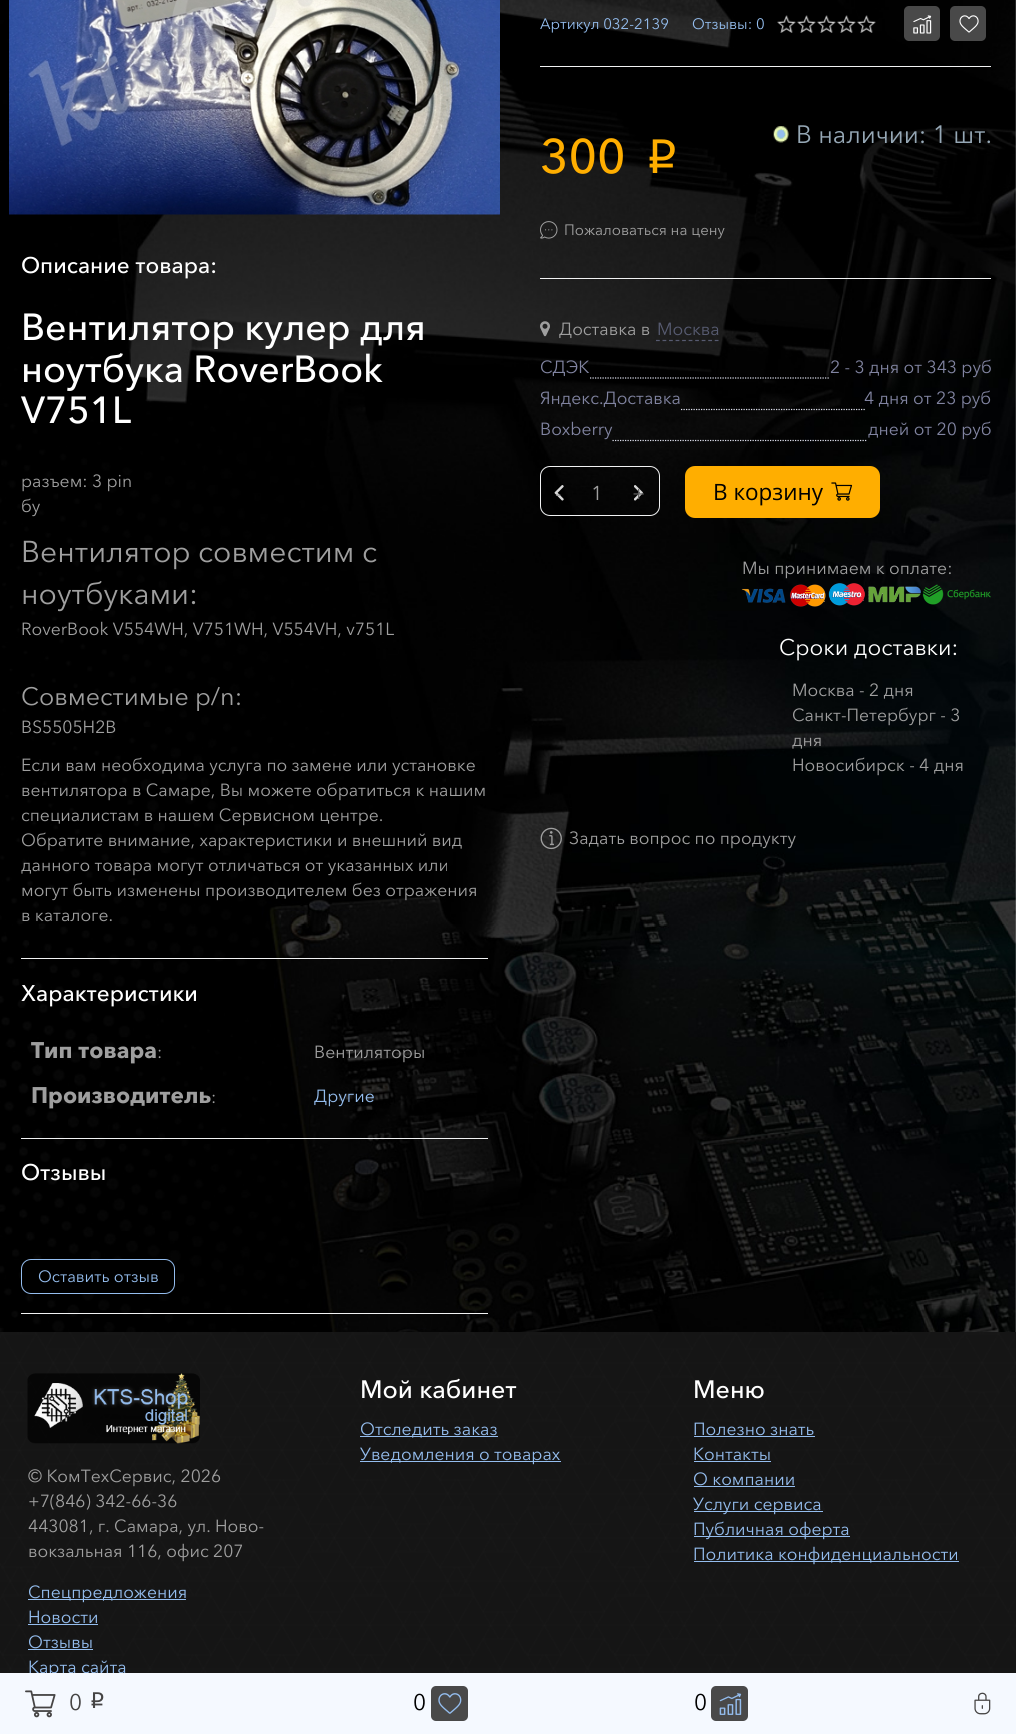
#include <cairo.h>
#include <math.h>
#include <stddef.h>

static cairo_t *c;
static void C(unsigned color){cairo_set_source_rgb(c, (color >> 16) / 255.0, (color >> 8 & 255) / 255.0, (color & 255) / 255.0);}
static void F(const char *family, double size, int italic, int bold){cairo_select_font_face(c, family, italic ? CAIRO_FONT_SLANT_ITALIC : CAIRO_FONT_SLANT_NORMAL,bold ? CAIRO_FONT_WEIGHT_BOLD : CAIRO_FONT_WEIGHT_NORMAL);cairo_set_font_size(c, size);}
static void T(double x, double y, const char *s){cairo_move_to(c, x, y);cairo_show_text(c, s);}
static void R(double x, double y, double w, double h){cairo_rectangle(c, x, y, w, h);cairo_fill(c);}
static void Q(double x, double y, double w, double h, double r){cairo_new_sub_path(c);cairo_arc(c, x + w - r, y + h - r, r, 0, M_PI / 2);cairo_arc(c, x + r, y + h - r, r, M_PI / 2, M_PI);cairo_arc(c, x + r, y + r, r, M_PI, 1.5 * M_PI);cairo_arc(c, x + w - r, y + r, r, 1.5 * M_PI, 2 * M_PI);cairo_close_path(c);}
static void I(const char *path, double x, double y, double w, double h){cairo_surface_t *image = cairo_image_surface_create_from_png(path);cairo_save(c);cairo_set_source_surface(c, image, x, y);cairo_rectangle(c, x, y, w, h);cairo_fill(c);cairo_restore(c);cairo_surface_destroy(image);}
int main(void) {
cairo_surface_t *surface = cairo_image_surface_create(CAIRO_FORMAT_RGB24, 1016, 1734);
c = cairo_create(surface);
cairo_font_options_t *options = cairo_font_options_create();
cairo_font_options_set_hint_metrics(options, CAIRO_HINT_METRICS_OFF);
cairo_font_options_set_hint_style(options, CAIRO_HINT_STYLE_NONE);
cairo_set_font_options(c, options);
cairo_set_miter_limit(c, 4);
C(0xffffff);
cairo_paint(c);
I("1.png",0,0,1016,1332);
C(0xf1f2f3);
R(21,958,467,1);
F("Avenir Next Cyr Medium",22.5,0,0);
C(0xffffff);
T(21,273,"Описание товара:");
F("Avenir Next Cyr Medium",37.5,0,0);
T(21,340,"Вентилятор кулер для");
T(21,382,"ноутбука RoverBook");
T(21,423,"V751L");
F("Avenir Next Cyr",17.5,0,0);
C(0x9f9f9f);
T(21,487,"разъем: 3 pin");
T(21,512,"бу");
F("Avenir Next Cyr",30,0,0);
T(21,562,"Вентилятор совместим с");
T(21,604,"ноутбуками:");
F("Avenir Next Cyr",17.5,0,0);
T(21,635,"RoverBook V554WH, V751WH, V554VH, v751L");
F("Avenir Next Cyr",25,0,0);
T(21,705,"Совместимые p/n:");
F("Avenir Next Cyr",17.5,0,0);
T(21,733,"BS5505H2B");
T(21,771,"Если вам необходима услуга по замене или установке");
T(21,796,"вентилятора в Самаре, Вы можете обратиться к нашим");
T(21,821,"специалистам в нашем Сервисном центре.");
T(21,846,"Обратите внимание, характеристики и внешний вид");
T(21,871,"данного товара могут отличаться от указанных или");
T(21,896,"могут быть изменены производителем без отражения");
T(21,921,"в каталоге.");
C(0xf1f2f3);
R(21,1138,467,1);
F("Avenir Next Cyr Medium",22.5,0,0);
C(0xffffff);
T(21,1001,"Характеристики");
F("Avenir Next Cyr",22.5,0,1);
C(0x9f9f9f);
T(31,1058,"Тип товара");
F("Avenir Next Cyr",17.5,0,0);
T(157,1058,":");
T(314,1058,"Вентиляторы");
F("Avenir Next Cyr",22.5,0,1);
T(31,1103,"Производитель");
F("Avenir Next Cyr",17.5,0,0);
T(211,1103,":");
C(0x94bdee);
T(314,1102,"Другие");
C(0xf1f2f3);
R(21,1313,467,1);
F("Avenir Next Cyr Medium",22.5,0,0);
C(0xffffff);
T(21,1180,"Отзывы");
C(0x000000);
Q(21.5,1259.5,153,34,9.5);
cairo_fill_preserve(c);
C(0x94bdee);
cairo_set_line_width(c,1);
cairo_stroke(c);
F("Avenir Next Cyr",16.25,0,0);
T(38,1282,"Оставить отзыв");
I("2.png",9,0,491,215);
C(0xf1f2f3);
R(540,66,451,1);
F("Avenir Next Cyr",15,0,0);
C(0x94bdee);
T(540,29,"Артикул 032-2139");
T(692,29,"Отзывы: 0");
I("3.png",777,15,99,18);
C(0x494949);
Q(904,6,36,35,5);
cairo_fill(c);
I("4.png",913,15,19,19);
Q(950,6,36,35,5);
cairo_fill(c);
I("5.png",959,15,20,18);
C(0xf1f2f3);
R(540,278,451,1);
I("6.png",773,126,16,17);
F("Avenir Next Cyr",25,0,0);
C(0x96a8b6);
T(796,143,"В наличии: 1 шт.");
F("Avenir Next Cyr Medium",48,0,0);
C(0xffae00);
T(540,173,"300");
F("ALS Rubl",48,0,0);
T(640,173,"p");
I("7.png",540,221,18,18);
F("Avenir Next Cyr",15,0,0);
C(0x9f9f9f);
T(564,235,"Пожаловаться на цену");
I("8.png",540,321,10,16);
F("Avenir Next Cyr",17.5,0,0);
T(559,335,"Доставка в");
C(0x575b71);
T(657,335,"Москва");
cairo_new_path(c);
cairo_move_to(c,656,340.5);
cairo_line_to(c,719,340.5);
cairo_set_line_width(c,1.2);
cairo_set_dash(c,(double[]){3.75,2.78},2,0);
cairo_stroke(c);
C(0x8184a1);
T(540,373,"СДЭК");
T(830,373,"2 - 3 дня от 343 руб");
cairo_new_path(c);
cairo_move_to(c,590,378);
cairo_line_to(c,830,378);
C(0xdee0ee);
cairo_set_dash(c,(double[]){1.25,1.25},2,0);
cairo_stroke(c);
C(0x8184a1);
T(540,404,"Яндекс.Доставка");
T(864,404,"4 дня от 23 руб");
cairo_new_path(c);
cairo_move_to(c,681,409.5);
cairo_line_to(c,865,409.5);
C(0xdee0ee);
cairo_stroke(c);
C(0x8184a1);
T(540,435,"Boxberry");
T(868,435,"дней от 20 руб");
cairo_new_path(c);
cairo_move_to(c,612.5,440.5);
cairo_line_to(c,867.5,440.5);
C(0xdee0ee);
cairo_stroke(c);
Q(540.5,466.5,119,49,9.5);
C(0xf1f2f3);
cairo_set_line_width(c,1);
cairo_set_dash(c,NULL,0,0);
cairo_stroke(c);
I("9.png",554,485,10,16);
F("Avenir Next Cyr",20,0,0);
C(0x919191);
T(555,500,"-");
C(0x9f9f9f);
T(591,500,"1");
I("10.png",634,485,9,16);
C(0x616161);
T(632,500,"+");
C(0xffae00);
Q(685,466,195,52,10);
cairo_fill(c);
F("Open Sans",22.5,0,0);
C(0x000000);
T(713,500,"В корзину");
I("11.png",831,482,22,19);
F("Avenir Next Cyr",17.5,0,0);
C(0x9f9f9f);
T(742,574,"Мы принимаем к оплате:");
I("12.png",741,583,250,24);
F("Avenir Next Cyr",22.5,0,0);
C(0xffffff);
T(779,655,"Сроки доставки:");
F("Avenir Next Cyr",17.5,0,0);
C(0x9f9f9f);
T(792,696,"Москва - 2 дня");
T(792,721,"Санкт-Петербург - 3");
T(792,746,"дня");
T(792,771,"Новосибирск - 4 дня");
I("13.png",540,827,22,23);
T(569,844,"Задать вопрос по продукту");
I("14.png",0,1332,1016,341);
I("15.png",27,1373,173,71);
T(28,1482,"© КомТехСервис, 2026");
T(28,1507,"+7(846) 342-66-36");
T(28,1532,"443081, г. Самара, ул. Ново-");
T(28,1557,"вокзальная 116, офис 207");
F("Avenir Next Cyr Medium",25,0,0);
C(0xffffff);
T(360,1398,"Мой кабинет");
C(0x94bdee);
R(360,1436,138,1);
F("Avenir Next Cyr",17.5,0,0);
T(360,1435,"Отследить заказ");
R(360,1461,201,1);
T(360,1460,"Уведомления о товарах");
F("Avenir Next Cyr Medium",25,0,0);
C(0xffffff);
T(693,1398,"Меню");
F("Avenir Next Cyr",17.5,0,0);
C(0x94bdee);
T(693,1435,"Полезно знать");
R(694,1436,121,1);
T(693,1460,"Контакты");
R(694,1461,77,1);
T(693,1485,"О компании");
R(694,1486,101,1);
R(694,1511,129,1);
T(693,1510,"Услуги сервиса");
R(694,1536,156,1);
T(693,1535,"Публичная оферта");
R(694,1561,265,1);
T(693,1560,"Политика конфиденциальности");
R(28,1599,158,1);
T(28,1598,"Спецпредложения");
T(28,1623,"Новости");
R(28,1624,70,1);
T(28,1648,"Отзывы");
R(28,1649,65,1);
T(28,1673,"Карта сайта");
C(0xf5f9ff);
R(0,1673,1016,61);
I("16.png",25,1690,31,28);
F("Avenir Next Cyr",22.5,0,0);
C(0x454444);
T(69,1710,"0");
F("ALS Rubl",22.5,0,0);
T(87,1708,"p");
F("Avenir Next Cyr",22.5,0,0);
C(0x000000);
T(413,1710,"0");
C(0x494949);
Q(431,1686,37,35,5);
cairo_fill(c);
I("17.png",438,1693,24,21);
C(0x000000);
T(694,1710,"0");
C(0x494949);
Q(711,1686,37,35,5);
cairo_fill(c);
I("18.png",719,1693,23,22);
I("19.png",974,1692,17,23);
cairo_surface_write_to_png(surface, "o.png");
cairo_font_options_destroy(options);
cairo_destroy(c);
cairo_surface_destroy(surface);
return 0;
}
